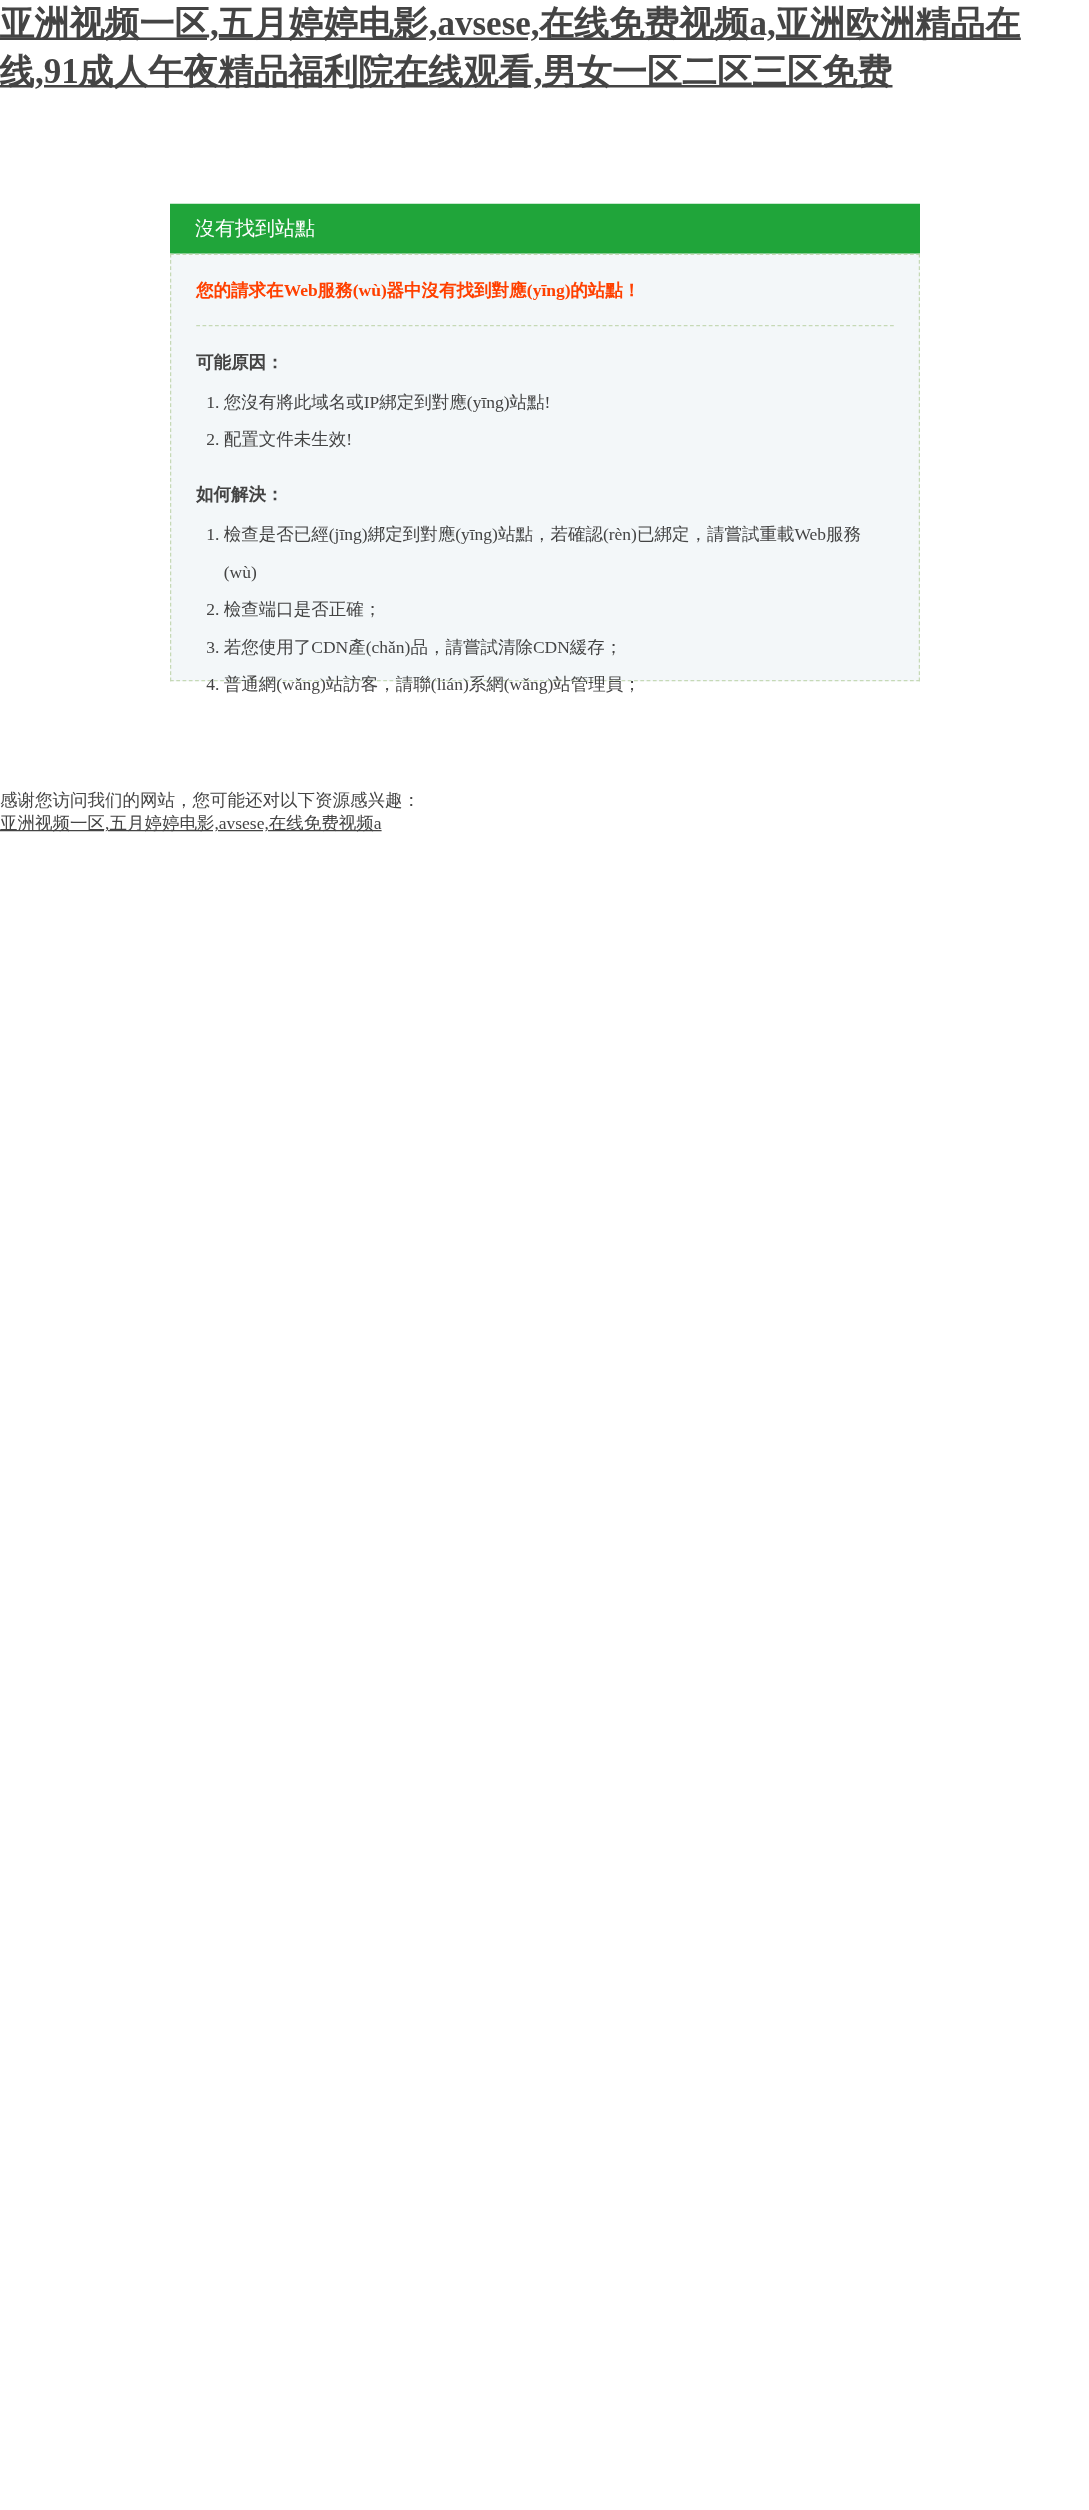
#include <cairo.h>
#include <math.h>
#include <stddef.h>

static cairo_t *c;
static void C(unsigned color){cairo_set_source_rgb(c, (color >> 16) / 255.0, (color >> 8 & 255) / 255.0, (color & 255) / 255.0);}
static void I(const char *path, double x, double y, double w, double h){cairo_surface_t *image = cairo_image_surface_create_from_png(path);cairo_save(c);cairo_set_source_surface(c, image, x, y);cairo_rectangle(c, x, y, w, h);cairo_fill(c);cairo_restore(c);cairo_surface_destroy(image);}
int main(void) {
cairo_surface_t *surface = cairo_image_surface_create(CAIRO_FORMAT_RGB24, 1089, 2510);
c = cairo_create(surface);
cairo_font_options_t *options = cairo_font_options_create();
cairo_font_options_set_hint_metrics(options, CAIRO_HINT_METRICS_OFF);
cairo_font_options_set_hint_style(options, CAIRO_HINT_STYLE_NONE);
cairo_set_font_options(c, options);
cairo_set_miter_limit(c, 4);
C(0xffffff);
cairo_paint(c);
I("1.png",0,5,1021,827);
cairo_surface_write_to_png(surface, "o.png");
cairo_font_options_destroy(options);
cairo_destroy(c);
cairo_surface_destroy(surface);
return 0;
}
